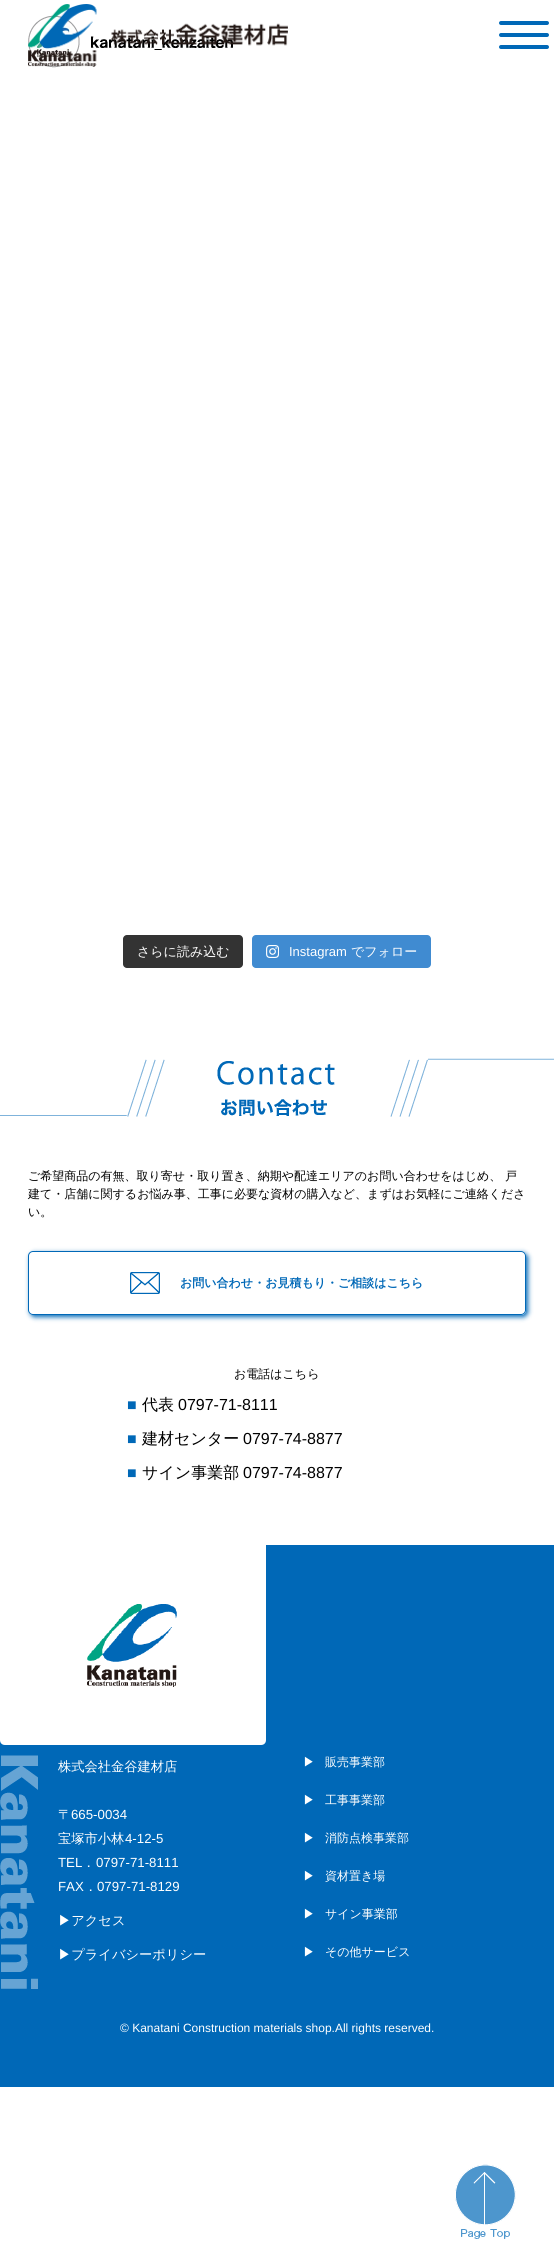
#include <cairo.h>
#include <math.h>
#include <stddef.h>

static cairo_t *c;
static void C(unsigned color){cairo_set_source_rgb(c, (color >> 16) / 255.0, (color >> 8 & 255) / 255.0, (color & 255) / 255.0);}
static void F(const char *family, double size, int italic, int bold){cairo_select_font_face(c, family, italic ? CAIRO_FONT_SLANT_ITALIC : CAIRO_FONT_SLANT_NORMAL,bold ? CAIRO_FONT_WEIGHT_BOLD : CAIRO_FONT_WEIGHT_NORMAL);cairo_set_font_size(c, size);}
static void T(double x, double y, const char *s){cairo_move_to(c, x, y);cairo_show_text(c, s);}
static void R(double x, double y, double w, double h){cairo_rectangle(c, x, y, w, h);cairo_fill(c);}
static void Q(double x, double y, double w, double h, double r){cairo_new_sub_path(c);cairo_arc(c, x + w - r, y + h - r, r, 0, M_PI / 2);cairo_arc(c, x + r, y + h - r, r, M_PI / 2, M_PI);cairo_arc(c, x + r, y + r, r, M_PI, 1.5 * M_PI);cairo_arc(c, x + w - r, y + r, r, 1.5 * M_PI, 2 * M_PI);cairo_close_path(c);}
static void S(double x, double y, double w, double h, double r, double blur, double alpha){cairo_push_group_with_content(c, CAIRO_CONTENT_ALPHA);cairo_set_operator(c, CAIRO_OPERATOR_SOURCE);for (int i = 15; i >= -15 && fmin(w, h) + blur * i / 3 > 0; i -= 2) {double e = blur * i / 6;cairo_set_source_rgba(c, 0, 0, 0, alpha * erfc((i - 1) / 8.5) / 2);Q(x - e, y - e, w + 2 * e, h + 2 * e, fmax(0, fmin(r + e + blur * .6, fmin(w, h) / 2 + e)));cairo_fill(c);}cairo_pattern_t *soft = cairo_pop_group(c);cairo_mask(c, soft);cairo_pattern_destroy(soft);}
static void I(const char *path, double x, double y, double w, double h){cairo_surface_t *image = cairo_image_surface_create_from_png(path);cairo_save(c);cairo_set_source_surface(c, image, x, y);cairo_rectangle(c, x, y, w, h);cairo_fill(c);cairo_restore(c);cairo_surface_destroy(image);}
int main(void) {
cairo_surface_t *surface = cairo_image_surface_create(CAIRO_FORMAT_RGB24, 554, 2264);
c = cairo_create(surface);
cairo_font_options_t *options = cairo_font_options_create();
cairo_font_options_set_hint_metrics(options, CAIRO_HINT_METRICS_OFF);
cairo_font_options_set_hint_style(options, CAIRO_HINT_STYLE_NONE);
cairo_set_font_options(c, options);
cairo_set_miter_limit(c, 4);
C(0xffffff);
cairo_paint(c);
I("2.png",28,15,205,53);
I("1.png",28,4,260,63);
C(0x0068b7);
Q(499,33,50,4,2);
cairo_fill(c);
Q(499,21,50,4,2);
cairo_fill(c);
Q(499,45,50,4,2);
cairo_fill(c);
C(0x333333);
Q(123,935,120,33,4);
cairo_fill(c);
F("WenQuanYi Zen Hei Medium",13,0,0);
C(0xffffff);
T(137,956,"さらに読み込む");
C(0x408bd1);
Q(252,935,179,33,4);
cairo_fill(c);
I("3.png",266,945,13,13);
F("Liberation Sans",13,0,0);
C(0xffffff);
T(289,956,"Instagram");
F("WenQuanYi Zen Hei Medium",13,0,0);
T(351,956,"でフォロー");
I("4.png",0,1058,554,58);
I("5.png",126,1058,302,59);
F("WenQuanYi Zen Hei Medium",12,0,0);
C(0x000000);
T(28,1180,"ご希望商品の有無、取り寄せ・取り置き、納期や配達エリアのお問い合わせをはじめ、 戸");
T(28,1198,"建て・店舗に関するお悩み事、工事に必要な資材の購入など、まずはお気軽にご連絡くださ");
T(28,1216,"い。");
cairo_save(c);
cairo_set_fill_rule(c,CAIRO_FILL_RULE_EVEN_ODD);
cairo_new_path(c);
cairo_move_to(c,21,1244);
cairo_line_to(c,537,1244);
cairo_line_to(c,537,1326);
cairo_line_to(c,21,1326);
cairo_close_path(c);
cairo_move_to(c,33,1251);
cairo_line_to(c,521,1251);
cairo_curve_to(c,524,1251,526,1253,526,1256);
cairo_line_to(c,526,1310);
cairo_curve_to(c,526,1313,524,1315,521,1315);
cairo_line_to(c,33,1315);
cairo_curve_to(c,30,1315,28,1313,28,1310);
cairo_line_to(c,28,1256);
cairo_curve_to(c,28,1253,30,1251,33,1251);
cairo_close_path(c);
cairo_clip(c);
C(0x0068b7);
S(30,1253,498,64,5,2.5,1);
cairo_restore(c);
Q(28.5,1251.5,497,63,4.5);
C(0x0068b7);
cairo_set_line_width(c,1);
cairo_stroke(c);
I("6.png",130,1272,30,22);
F("WenQuanYi Zen Hei",12,0,1);
T(180,1287,"お問い合わせ・お見積もり・ご相談はこちら");
F("WenQuanYi Zen Hei Medium",12,0,0);
C(0x000000);
T(234,1378,"お電話はこちら");
F("Liberation Sans",16,0,0);
C(0x0068b7);
T(127,1410,"■");
F("WenQuanYi Zen Hei Medium",16,0,0);
C(0x000000);
T(142,1410,"代表");
F("Liberation Sans",16,0,0);
T(178,1410,"0797-71-8111");
C(0x0068b7);
T(127,1444,"■");
F("WenQuanYi Zen Hei Medium",16,0,0);
C(0x000000);
T(142,1444,"建材センター");
F("Liberation Sans",16,0,0);
T(243,1444,"0797-74-8877");
C(0x0068b7);
T(127,1478,"■");
F("WenQuanYi Zen Hei Medium",16,0,0);
C(0x000000);
T(142,1478,"サイン事業部");
F("Liberation Sans",16,0,0);
T(243,1478,"0797-74-8877");
C(0x0068b7);
R(0,1545,554,542);
C(0xffffff);
cairo_new_path(c);
cairo_move_to(c,0,1545);
cairo_line_to(c,266,1545);
cairo_line_to(c,266,1740);
cairo_curve_to(c,266,1743,264,1745,261,1745);
cairo_line_to(c,5,1745);
cairo_curve_to(c,2,1745,0,1743,0,1740);
cairo_close_path(c);
cairo_fill(c);
I("7.png",87,1604,90,83);
I("8.png",0,1755,38,234);
F("WenQuanYi Zen Hei Medium",13.25,0,0);
T(58,1771,"株式会社金谷建材店");
T(58,1819,"〒");
F("Liberation Sans",13.25,0,0);
T(71,1819,"665-0034");
F("WenQuanYi Zen Hei Medium",13.25,0,0);
T(58,1843,"宝塚市小林");
F("Liberation Sans",13.25,0,0);
T(125,1843,"4-12-5");
T(58,1867,"TEL");
F("WenQuanYi Zen Hei Medium",13.25,0,0);
T(82,1867,"．");
F("Liberation Sans",13.25,0,0);
T(96,1867,"0797-71-8111");
T(58,1891,"FAX");
F("WenQuanYi Zen Hei Medium",13.25,0,0);
T(84,1891,"．");
F("Liberation Sans",13.25,0,0);
T(97,1891,"0797-71-8129");
F("WenQuanYi Zen Hei Medium",13.25,0,0);
T(58,1925,"▶アクセス");
T(58,1959,"▶プライバシーポリシー");
F("WenQuanYi Zen Hei Medium",12,0,0);
T(303,1766,"▶");
T(325,1766,"販売事業部");
T(303,1804,"▶");
T(325,1804,"工事事業部");
T(303,1842,"▶");
T(325,1842,"消防点検事業部");
T(303,1880,"▶");
T(325,1880,"資材置き場");
T(303,1918,"▶");
T(325,1918,"サイン事業部");
T(303,1956,"▶");
T(325,1956,"その他サービス");
F("Liberation Sans",12,0,0);
T(120,2032,"© Kanatani Construction materials shop.All rights reserved.");
I("9.png",455,2164,61,75);
cairo_surface_write_to_png(surface, "o.png");
cairo_font_options_destroy(options);
cairo_destroy(c);
cairo_surface_destroy(surface);
return 0;
}
